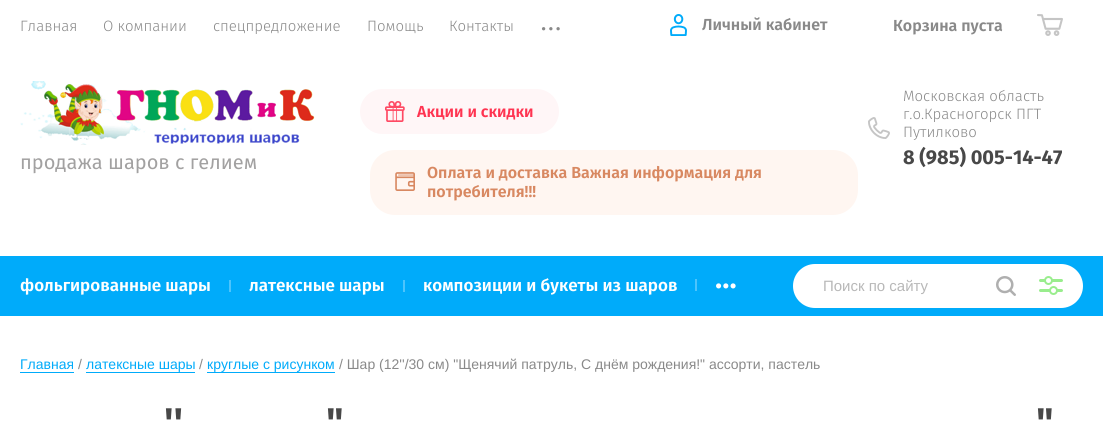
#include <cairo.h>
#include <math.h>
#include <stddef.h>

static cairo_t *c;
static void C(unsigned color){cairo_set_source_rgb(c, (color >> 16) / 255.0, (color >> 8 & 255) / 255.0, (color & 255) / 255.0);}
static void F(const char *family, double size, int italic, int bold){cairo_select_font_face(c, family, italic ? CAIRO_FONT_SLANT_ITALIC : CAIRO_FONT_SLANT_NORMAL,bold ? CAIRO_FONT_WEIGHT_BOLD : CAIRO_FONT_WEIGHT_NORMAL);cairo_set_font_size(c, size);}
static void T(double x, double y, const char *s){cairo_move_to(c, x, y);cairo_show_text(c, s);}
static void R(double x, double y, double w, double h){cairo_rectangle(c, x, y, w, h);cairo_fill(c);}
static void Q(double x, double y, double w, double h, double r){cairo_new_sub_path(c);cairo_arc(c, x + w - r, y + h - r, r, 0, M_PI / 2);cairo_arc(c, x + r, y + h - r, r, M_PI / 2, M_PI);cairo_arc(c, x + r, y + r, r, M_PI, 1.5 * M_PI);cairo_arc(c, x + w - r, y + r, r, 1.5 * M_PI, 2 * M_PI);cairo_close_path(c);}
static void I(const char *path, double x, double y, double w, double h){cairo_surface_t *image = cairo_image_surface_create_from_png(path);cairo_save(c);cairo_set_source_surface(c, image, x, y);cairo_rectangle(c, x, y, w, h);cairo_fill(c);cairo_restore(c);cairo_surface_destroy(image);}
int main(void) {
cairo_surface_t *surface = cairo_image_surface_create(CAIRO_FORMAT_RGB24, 1103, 421);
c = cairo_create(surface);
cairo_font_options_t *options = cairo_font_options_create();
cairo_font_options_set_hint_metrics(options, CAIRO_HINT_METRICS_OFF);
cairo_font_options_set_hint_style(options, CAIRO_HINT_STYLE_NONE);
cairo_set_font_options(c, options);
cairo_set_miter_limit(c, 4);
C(0xffffff);
cairo_paint(c);
F("Fira Sans Light",15,0,0);
C(0x898989);
T(20,31,"Главная");
T(103,31,"О компании");
T(213,31,"спецпредложение");
T(367,31,"Помощь");
T(449,31,"Контакты");
F("Fira Sans Light",35,0,0);
T(540,30,"...");
I("1.png",670,14,17,22);
F("Fira Sans SemiBold",16,0,0);
T(702,30,"Личный кабинет");
I("2.png",1037,14,26,22);
T(893,31,"Корзина пуста");
I("3.png",20,81,295,64);
F("Fira Sans",20,0,0);
C(0xa2a1a1);
T(20,169,"продажа шаров с гелием");
C(0xfff6f7);
Q(360,89,199,45,22.5);
cairo_fill(c);
I("4.png",385,101,20,21);
F("Fira Sans SemiBold",16,0,0);
C(0xff3451);
T(417,117,"Акции и скидки");
C(0xfff6f1);
Q(370,150,488,65,25);
cairo_fill(c);
I("5.png",395,172,20,19);
C(0xd88861);
T(427,178,"Оплата и доставка Важная информация для");
T(427,197,"потребителя!!!");
I("6.png",868,117,22,22);
F("Fira Sans Light",15,0,0);
C(0x898989);
T(903,101,"Московская область");
T(903,119,"г.о.Красногорск ПГТ");
T(903,137,"Путилково");
F("Fira Sans",20,0,1);
C(0x484848);
T(903,164,"8 (985) 005-14-47");
C(0x00abfa);
R(0,256,1103,60);
F("Fira Sans SemiBold",17,0,0);
C(0xffffff);
T(20,291,"фольгированные шары");
C(0x4dc4fc);
R(229,280,2,12);
C(0xffffff);
T(249,291,"латексные шары");
C(0x4dc4fc);
R(403,280,2,12);
C(0xffffff);
T(423,291,"композиции и букеты из шаров");
C(0x4dc4fc);
R(695,279,2,12);
F("Fira Sans SemiBold",30,0,0);
C(0xffffff);
T(715,288,"...");
Q(793,264,290,44,22);
cairo_fill(c);
F("Liberation Sans",15,0,0);
C(0xb8b8b8);
T(823,291,"Поиск по сайту");
I("7.png",996,276,20,20);
I("8.png",1039,276,24,19);
F("Liberation Sans",14,0,0);
C(0x00abfa);
T(20,369,"Главная");
R(20,372,54,1);
C(0x898989);
T(78,369,"/");
C(0x00abfa);
T(86,369,"латексные шары");
R(86,372,109,1);
C(0x898989);
T(199,369,"/");
C(0x00abfa);
T(207,369,"круглые с рисунком");
R(207,372,128,1);
C(0x898989);
T(339,369,"/ Шар (12''/30 см) \"Щенячий патруль, С днём рождения!\" ассорти, пастель");
F("Fira Sans",40,0,1);
C(0x484848);
T(164,436,"''");
T(326,436,"\"");
T(1036,436,"\"");
cairo_surface_write_to_png(surface, "o.png");
cairo_font_options_destroy(options);
cairo_destroy(c);
cairo_surface_destroy(surface);
return 0;
}
